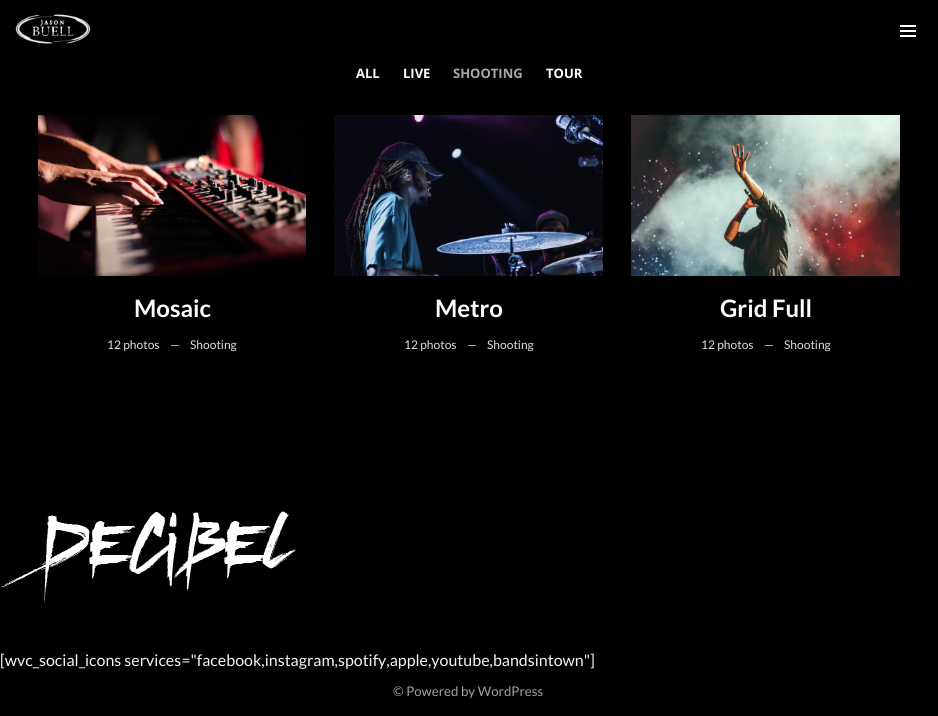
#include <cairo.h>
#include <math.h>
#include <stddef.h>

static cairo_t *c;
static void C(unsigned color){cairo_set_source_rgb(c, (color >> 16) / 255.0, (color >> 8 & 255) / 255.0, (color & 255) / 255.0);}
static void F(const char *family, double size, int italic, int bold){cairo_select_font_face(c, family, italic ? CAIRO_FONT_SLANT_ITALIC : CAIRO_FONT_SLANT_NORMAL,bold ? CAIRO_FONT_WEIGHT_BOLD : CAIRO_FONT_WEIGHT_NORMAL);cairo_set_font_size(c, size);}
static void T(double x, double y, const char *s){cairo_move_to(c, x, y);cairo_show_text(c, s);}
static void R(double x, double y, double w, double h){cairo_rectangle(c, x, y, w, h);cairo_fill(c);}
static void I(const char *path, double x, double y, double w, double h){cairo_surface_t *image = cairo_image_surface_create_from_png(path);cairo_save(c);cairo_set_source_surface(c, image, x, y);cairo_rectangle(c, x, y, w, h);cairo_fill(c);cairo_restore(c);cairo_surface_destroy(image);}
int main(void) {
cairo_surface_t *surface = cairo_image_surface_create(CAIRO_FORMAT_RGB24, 938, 716);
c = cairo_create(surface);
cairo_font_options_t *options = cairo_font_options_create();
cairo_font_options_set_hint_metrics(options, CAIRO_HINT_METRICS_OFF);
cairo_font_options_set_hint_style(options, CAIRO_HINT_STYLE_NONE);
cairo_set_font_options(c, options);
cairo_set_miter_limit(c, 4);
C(0x000000);
cairo_paint(c);
I("1.png",15,14,76,30);
C(0xffffff);
R(900,25,16,2);
R(900,30,16,2);
R(900,35,16,2);
F("Open Sans",13,0,1);
T(356,78,"ALL");
T(403,78,"LIVE");
C(0xa8a8a8);
T(453,78,"SHOOTING");
C(0xffffff);
T(546,78,"TOUR");
I("2.png",38,115,268,161);
F("Lato",24,0,1);
T(134,317,"Mosaic");
F("Lato",12,0,0);
C(0xe0e0e0);
T(107,349,"12 photos");
C(0xd7d7d7);
T(170,349,"—");
C(0xe0e0e0);
T(190,349,"Shooting");
I("3.png",334,115,269,161);
F("Lato",24,0,1);
C(0xffffff);
T(435,317,"Metro");
F("Lato",12,0,0);
C(0xe0e0e0);
T(404,349,"12 photos");
C(0xd7d7d7);
T(467,349,"—");
C(0xe0e0e0);
T(487,349,"Shooting");
I("4.png",631,115,269,161);
F("Lato",24,0,1);
C(0xffffff);
T(720,317,"Grid Full");
F("Lato",12,0,0);
C(0xe0e0e0);
T(701,349,"12 photos");
C(0xd7d7d7);
T(764,349,"—");
C(0xe0e0e0);
T(784,349,"Shooting");
I("5.png",1,511,296,92);
F("Lato",16,0,0);
C(0xf4f4f4);
T(0,666,"[wvc_social_icons services=\"facebook,instagram,spotify,apple,youtube,bandsintown\"]");
F("Lato",13.25,0,0);
C(0xa1a1a1);
T(393,696,"© Powered by WordPress");
cairo_surface_write_to_png(surface, "o.png");
cairo_font_options_destroy(options);
cairo_destroy(c);
cairo_surface_destroy(surface);
return 0;
}
